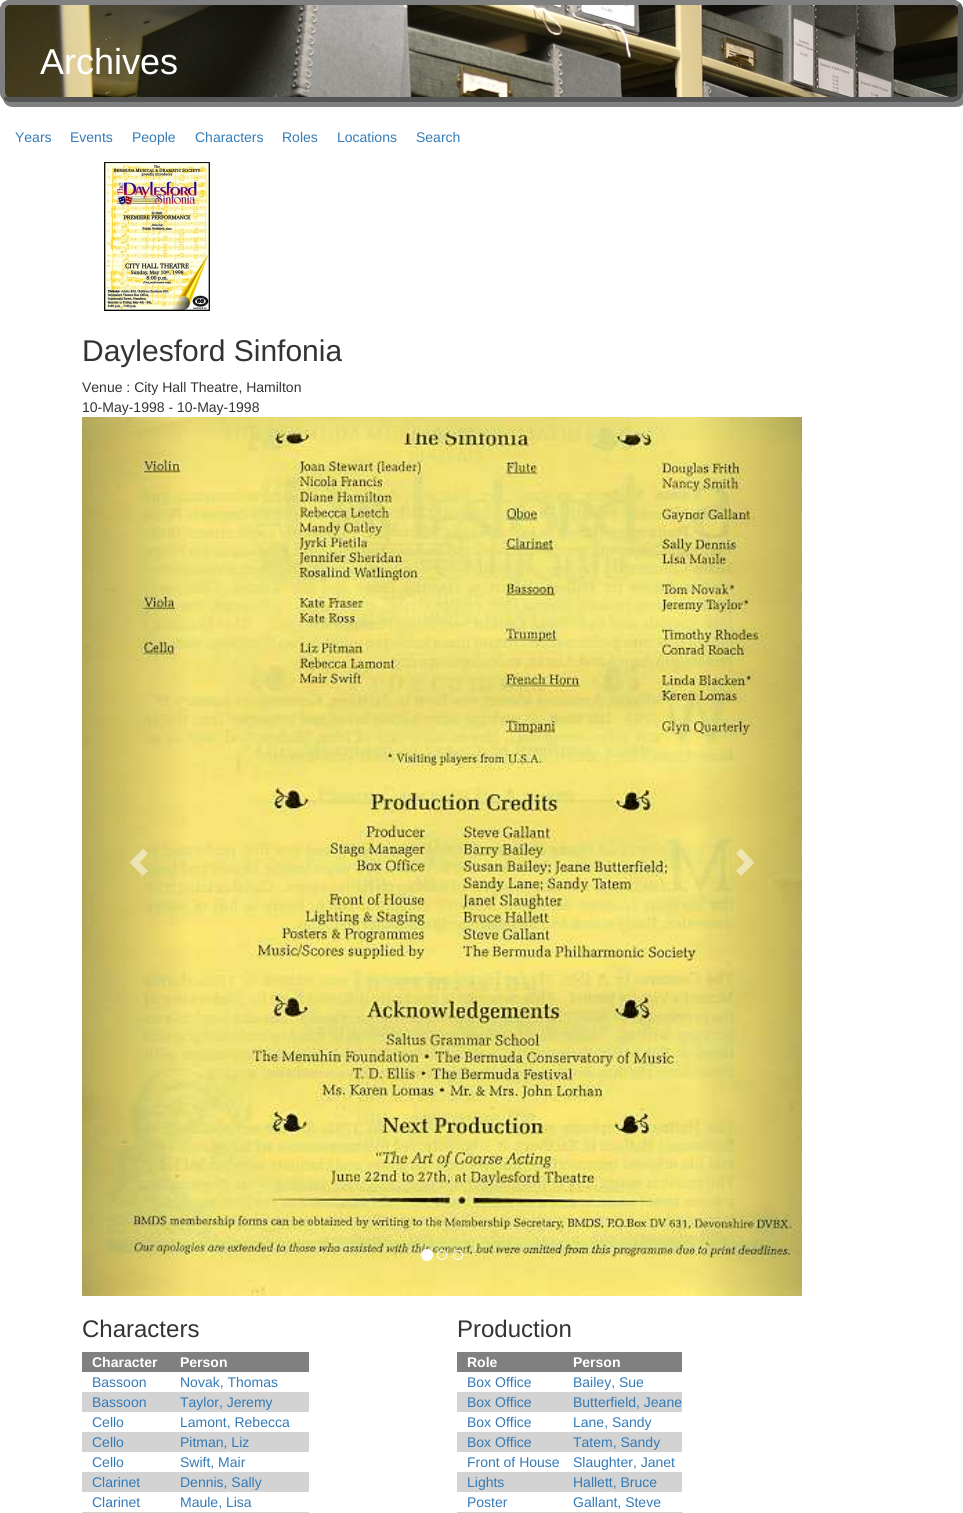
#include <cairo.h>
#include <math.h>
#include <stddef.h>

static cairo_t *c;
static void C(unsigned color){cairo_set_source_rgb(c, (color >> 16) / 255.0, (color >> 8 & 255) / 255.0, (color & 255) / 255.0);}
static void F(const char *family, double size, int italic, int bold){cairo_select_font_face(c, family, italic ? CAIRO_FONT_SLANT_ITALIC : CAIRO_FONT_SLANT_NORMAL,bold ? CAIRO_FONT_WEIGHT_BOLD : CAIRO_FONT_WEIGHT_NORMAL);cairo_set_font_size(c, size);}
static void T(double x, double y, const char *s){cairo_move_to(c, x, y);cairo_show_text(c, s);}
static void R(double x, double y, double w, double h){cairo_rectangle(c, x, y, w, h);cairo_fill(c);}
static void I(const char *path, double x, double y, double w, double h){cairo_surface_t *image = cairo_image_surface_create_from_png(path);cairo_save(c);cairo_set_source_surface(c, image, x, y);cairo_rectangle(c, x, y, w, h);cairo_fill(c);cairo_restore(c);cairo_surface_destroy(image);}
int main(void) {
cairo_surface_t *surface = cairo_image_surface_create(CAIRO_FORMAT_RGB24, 963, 1513);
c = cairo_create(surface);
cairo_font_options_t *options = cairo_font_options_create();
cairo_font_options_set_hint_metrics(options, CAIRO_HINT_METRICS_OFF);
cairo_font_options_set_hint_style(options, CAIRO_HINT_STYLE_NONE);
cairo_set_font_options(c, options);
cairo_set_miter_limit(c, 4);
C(0xffffff);
cairo_paint(c);
C(0x808080);
cairo_new_path(c);
cairo_move_to(c,3,99);
cairo_curve_to(c,4,104,8,107,13,107);
cairo_line_to(c,956,107);
cairo_curve_to(c,962,107,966,103,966,97);
cairo_line_to(c,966,15);
cairo_curve_to(c,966,12,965,9,963,8);
cairo_line_to(c,963,92);
cairo_curve_to(c,963,98,959,102,953,102);
cairo_line_to(c,10,102);
cairo_curve_to(c,7,102,5,101,3,99);
cairo_close_path(c);
cairo_fill(c);
I("1.png",0,0,963,102);
cairo_new_path(c);
cairo_move_to(c,958.5,4.5);
cairo_curve_to(c,959.5,6,960.5,8,960.5,10);
cairo_line_to(c,960.5,92);
cairo_curve_to(c,960.5,94,959.5,96,958.5,97.5);
cairo_curve_to(c,957,98.5,955,99.5,953,99.5);
cairo_line_to(c,10,99.5);
cairo_curve_to(c,8,99.5,6,98.5,4.5,97.5);
C(0x555555);
cairo_set_line_width(c,5);
cairo_stroke(c);
cairo_new_path(c);
cairo_move_to(c,4.5,97.5);
cairo_curve_to(c,3.5,96,2.5,94,2.5,92);
cairo_line_to(c,2.5,10);
cairo_curve_to(c,2.5,8,3.5,6,4.5,4.5);
cairo_curve_to(c,6,3.5,8,2.5,10,2.5);
cairo_line_to(c,953,2.5);
cairo_curve_to(c,955,2.5,957,3.5,958.5,4.5);
C(0x808080);
cairo_stroke(c);
F("Liberation Sans",36,0,0);
C(0xffffff);
T(40,74,"Archives");
F("Liberation Sans",14,0,0);
C(0x337ab7);
T(15,142,"Years");
T(70,142,"Events");
T(132,142,"People");
T(195,142,"Characters");
T(282,142,"Roles");
T(337,142,"Locations");
T(416,142,"Search");
I("2.png",104,162,106,149);
F("Liberation Sans",30,0,0);
C(0x333333);
T(82,361,"Daylesford Sinfonia");
F("Liberation Sans",14,0,0);
T(82,392,"Venue : City Hall Theatre, Hamilton");
T(82,412,"10-May-1998 - 10-May-1998");
I("3.png",82,417,720,879);
cairo_set_source_rgba(c,1,1,1,0.5);
cairo_new_path(c);
cairo_move_to(c,148,853.5);
cairo_line_to(c,139.5,862.5);
cairo_line_to(c,148,871);
cairo_line_to(c,143,876);
cairo_line_to(c,129.5,862.5);
cairo_line_to(c,143,848.5);
cairo_close_path(c);
cairo_fill(c);
cairo_new_path(c);
cairo_move_to(c,754.5,862.5);
cairo_line_to(c,741,876);
cairo_line_to(c,736,871);
cairo_line_to(c,744.5,862.5);
cairo_line_to(c,736,853.5);
cairo_line_to(c,741,848.5);
cairo_close_path(c);
cairo_fill(c);
C(0xffffff);
cairo_arc(c,427,1255,5.5,0,2 * M_PI);
cairo_fill_preserve(c);
cairo_set_line_width(c,1);
cairo_stroke(c);
cairo_arc(c,442,1255,4.5,0,2 * M_PI);
cairo_stroke(c);
cairo_arc(c,458,1255,4.5,0,2 * M_PI);
cairo_stroke(c);
F("Liberation Sans",24,0,0);
C(0x333333);
T(82,1337,"Characters");
C(0x808080);
R(82,1352,227,20);
F("Liberation Sans",14,0,1);
C(0xffffff);
T(92,1367,"Character");
T(180,1367,"Person");
F("Liberation Sans",14,0,0);
C(0x337ab7);
T(92,1387,"Bassoon");
T(180,1387,"Novak, Thomas");
C(0xd3d3d3);
R(82,1392,227,20);
C(0x337ab7);
T(92,1407,"Bassoon");
T(180,1407,"Taylor, Jeremy");
T(92,1427,"Cello");
T(180,1427,"Lamont, Rebecca");
C(0xd3d3d3);
R(82,1432,227,20);
C(0x337ab7);
T(92,1447,"Cello");
T(180,1447,"Pitman, Liz");
T(92,1467,"Cello");
T(180,1467,"Swift, Mair");
C(0xd3d3d3);
R(82,1472,227,20);
C(0x337ab7);
T(92,1487,"Clarinet");
T(180,1487,"Dennis, Sally");
T(92,1507,"Clarinet");
T(180,1507,"Maule, Lisa");
C(0xd3d3d3);
R(82,1512,227,1);
F("Liberation Sans",24,0,0);
C(0x333333);
T(457,1337,"Production");
C(0x808080);
R(457,1352,225,20);
F("Liberation Sans",14,0,1);
C(0xffffff);
T(467,1367,"Role");
T(573,1367,"Person");
F("Liberation Sans",14,0,0);
C(0x337ab7);
T(467,1387,"Box Office");
T(573,1387,"Bailey, Sue");
C(0xd3d3d3);
R(457,1392,225,20);
C(0x337ab7);
T(467,1407,"Box Office");
T(573,1407,"Butterfield, Jeane");
T(467,1427,"Box Office");
T(573,1427,"Lane, Sandy");
C(0xd3d3d3);
R(457,1432,225,20);
C(0x337ab7);
T(467,1447,"Box Office");
T(573,1447,"Tatem, Sandy");
T(467,1467,"Front of House");
T(573,1467,"Slaughter, Janet");
C(0xd3d3d3);
R(457,1472,225,20);
C(0x337ab7);
T(467,1487,"Lights");
T(573,1487,"Hallett, Bruce");
T(467,1507,"Poster");
T(573,1507,"Gallant, Steve");
C(0xd3d3d3);
R(457,1512,225,1);
cairo_surface_write_to_png(surface, "o.png");
cairo_font_options_destroy(options);
cairo_destroy(c);
cairo_surface_destroy(surface);
return 0;
}
